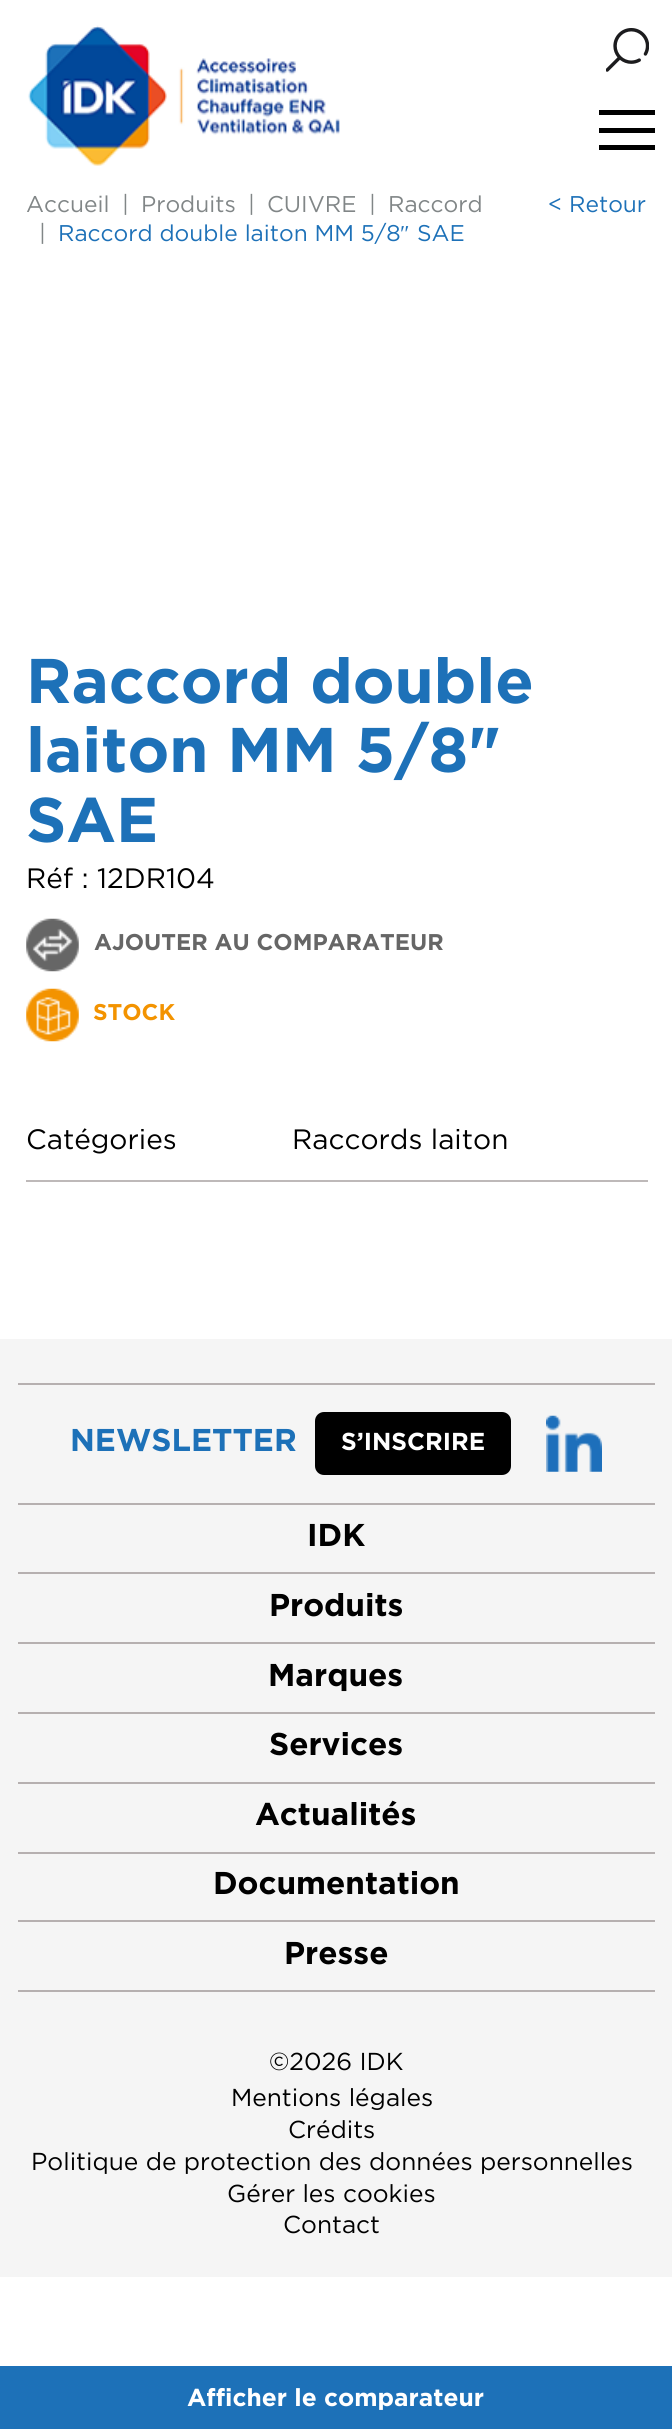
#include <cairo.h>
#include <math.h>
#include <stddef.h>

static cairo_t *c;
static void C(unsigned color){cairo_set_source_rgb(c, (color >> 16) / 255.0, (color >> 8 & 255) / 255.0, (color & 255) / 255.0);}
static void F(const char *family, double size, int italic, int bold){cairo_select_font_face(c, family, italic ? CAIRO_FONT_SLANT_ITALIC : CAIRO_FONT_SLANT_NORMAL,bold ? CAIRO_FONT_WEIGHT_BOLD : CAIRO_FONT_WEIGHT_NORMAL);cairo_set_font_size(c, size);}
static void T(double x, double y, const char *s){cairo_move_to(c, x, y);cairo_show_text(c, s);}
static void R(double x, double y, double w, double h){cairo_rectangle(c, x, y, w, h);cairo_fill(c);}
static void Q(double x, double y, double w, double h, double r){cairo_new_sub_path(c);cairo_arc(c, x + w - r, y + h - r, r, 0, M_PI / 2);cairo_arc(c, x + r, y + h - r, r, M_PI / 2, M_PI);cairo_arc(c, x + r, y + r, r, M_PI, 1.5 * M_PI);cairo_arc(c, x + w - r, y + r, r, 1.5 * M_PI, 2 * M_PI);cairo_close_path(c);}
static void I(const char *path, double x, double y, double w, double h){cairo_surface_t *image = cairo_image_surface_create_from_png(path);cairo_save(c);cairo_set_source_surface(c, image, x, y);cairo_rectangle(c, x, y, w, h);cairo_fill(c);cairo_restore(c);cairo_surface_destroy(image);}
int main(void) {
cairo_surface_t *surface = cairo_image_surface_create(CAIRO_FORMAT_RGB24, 672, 2429);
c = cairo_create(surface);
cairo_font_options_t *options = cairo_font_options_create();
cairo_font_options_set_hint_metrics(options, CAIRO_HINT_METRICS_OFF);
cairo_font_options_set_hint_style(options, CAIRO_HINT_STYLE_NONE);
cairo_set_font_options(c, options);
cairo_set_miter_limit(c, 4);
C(0xffffff);
cairo_paint(c);
I("1.png",28,25,312,141);
I("2.png",606,28,43,44);
C(0x000000);
R(599,110,56,5);
R(599,128,56,5);
R(599,145,56,5);
F("Gotham",22.75,0,0);
C(0x818687);
T(26,212,"Accueil");
T(122,212,"|");
T(141,212,"Produits");
T(248,212,"|");
T(267,212,"CUIVRE");
T(369,212,"|");
T(388,212,"Raccord");
T(39,241,"|");
C(0x1d71b8);
T(58,241,"Raccord double laiton MM 5/8");
F("Liberation Serif",22.75,0,0);
T(400,241,"″");
F("Gotham",22.75,0,0);
T(417,241,"SAE");
T(548,212,"< Retour");
F("Gotham",63,0,1);
T(26,703,"Raccord double");
T(26,772,"laiton MM 5/8\"");
T(26,842,"SAE");
F("Gotham",28,0,0);
C(0x000000);
T(26,888,"Réf : 12DR104");
I("3.png",26,918,53,54);
F("Gotham",22.75,0,1);
C(0x666666);
T(94,950,"AJOUTER AU COMPARATEUR");
I("4.png",26,988,53,54);
C(0xf39300);
T(93,1020,"STOCK");
C(0xbeb9b9);
R(26,1180,622,2);
F("Gotham",28,0,0);
C(0x000000);
T(26,1149,"Catégories");
T(292,1149,"Raccords laiton");
C(0xf5f5f5);
R(0,1339,672,938);
C(0xb6b0b0);
R(18,1383,637,2);
R(18,1503,637,2);
F("Gotham",31.5,0,1);
C(0x1d71b8);
T(70,1451,"NEWSLETTER");
C(0x000000);
Q(315,1412,196,63,9);
cairo_fill(c);
F("Gotham",24.5,0,1);
C(0xffffff);
T(341,1450,"S’INSCRIRE");
I("5.png",546,1415,56,57);
C(0xb6b0b0);
R(18,1572,637,2);
F("Gotham",31.5,0,1);
C(0x000000);
T(307,1546,"IDK");
C(0xb6b0b0);
R(18,1642,637,2);
C(0x000000);
T(269,1616,"Produits");
C(0xb6b0b0);
R(18,1712,637,2);
C(0x000000);
T(268,1686,"Marques");
C(0xb6b0b0);
R(18,1782,637,2);
C(0x000000);
T(269,1755,"Services");
C(0xb6b0b0);
R(18,1852,637,2);
C(0x000000);
T(255,1825,"Actualités");
C(0xb6b0b0);
R(18,1920,637,2);
C(0x000000);
T(213,1894,"Documentation");
C(0xb6b0b0);
R(18,1990,637,2);
C(0x000000);
T(284,1964,"Presse");
F("Gotham",24.5,0,0);
T(269,2070,"©2026 IDK");
T(231,2106,"Mentions légales");
T(288,2138,"Crédits");
T(31,2170,"Politique de protection des données personnelles");
T(227,2202,"Gérer les cookies");
T(283,2233,"Contact");
C(0x1d71b8);
R(0,2366,672,63);
F("Gotham",24.5,0,1);
C(0xffffff);
T(187,2406,"Afficher le comparateur");
cairo_surface_write_to_png(surface, "o.png");
cairo_font_options_destroy(options);
cairo_destroy(c);
cairo_surface_destroy(surface);
return 0;
}
